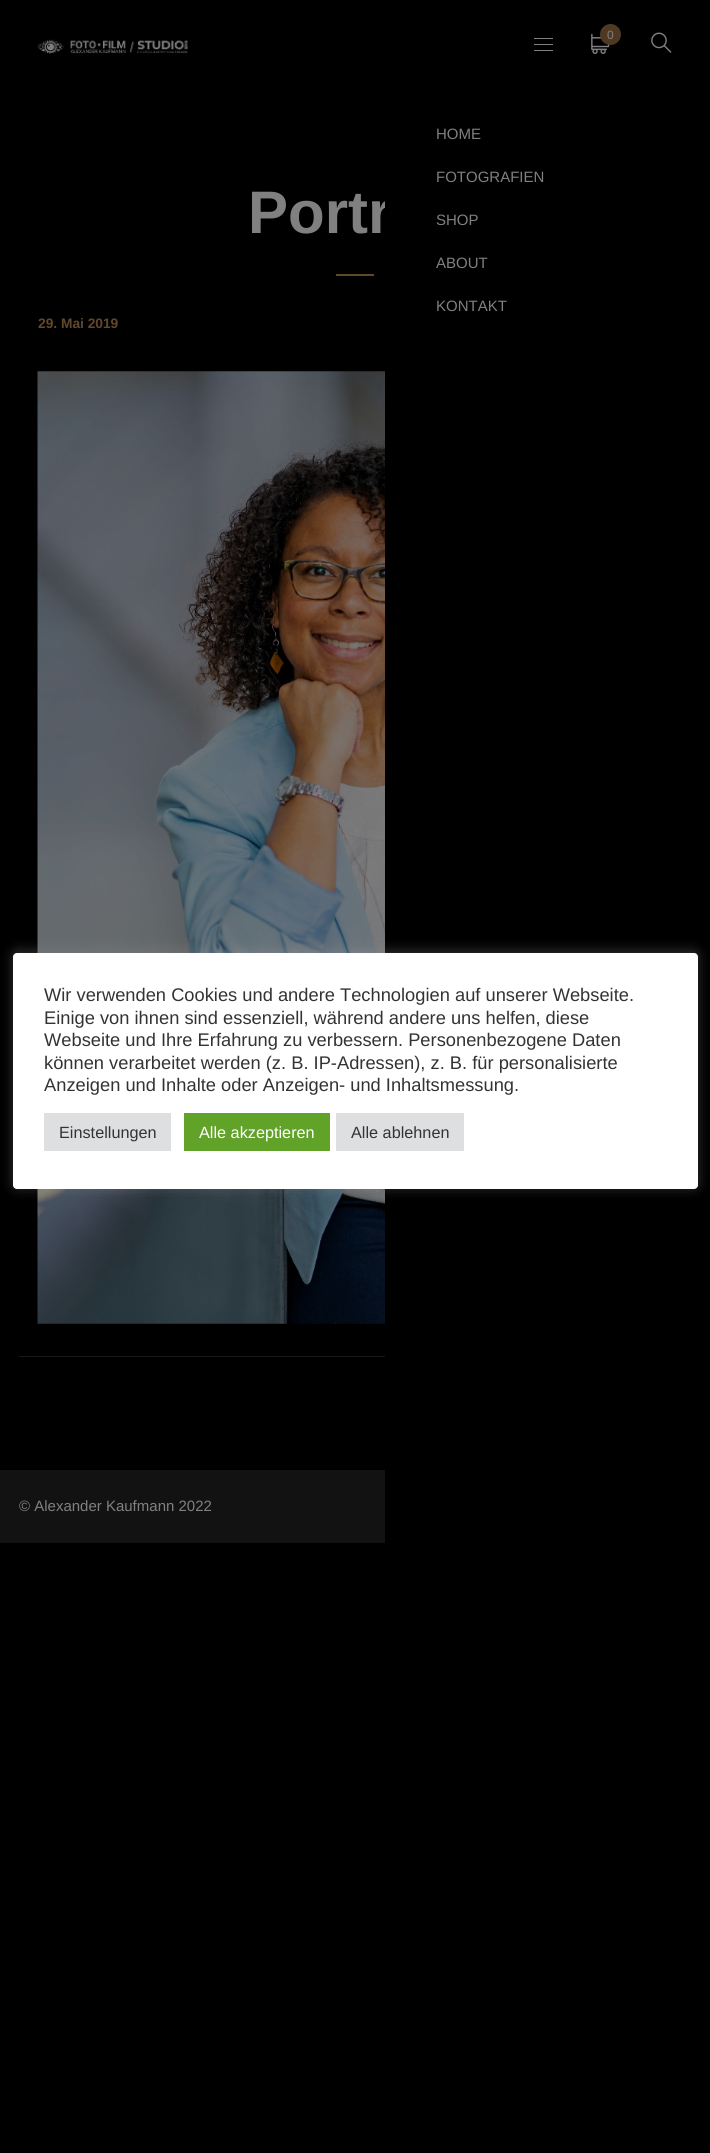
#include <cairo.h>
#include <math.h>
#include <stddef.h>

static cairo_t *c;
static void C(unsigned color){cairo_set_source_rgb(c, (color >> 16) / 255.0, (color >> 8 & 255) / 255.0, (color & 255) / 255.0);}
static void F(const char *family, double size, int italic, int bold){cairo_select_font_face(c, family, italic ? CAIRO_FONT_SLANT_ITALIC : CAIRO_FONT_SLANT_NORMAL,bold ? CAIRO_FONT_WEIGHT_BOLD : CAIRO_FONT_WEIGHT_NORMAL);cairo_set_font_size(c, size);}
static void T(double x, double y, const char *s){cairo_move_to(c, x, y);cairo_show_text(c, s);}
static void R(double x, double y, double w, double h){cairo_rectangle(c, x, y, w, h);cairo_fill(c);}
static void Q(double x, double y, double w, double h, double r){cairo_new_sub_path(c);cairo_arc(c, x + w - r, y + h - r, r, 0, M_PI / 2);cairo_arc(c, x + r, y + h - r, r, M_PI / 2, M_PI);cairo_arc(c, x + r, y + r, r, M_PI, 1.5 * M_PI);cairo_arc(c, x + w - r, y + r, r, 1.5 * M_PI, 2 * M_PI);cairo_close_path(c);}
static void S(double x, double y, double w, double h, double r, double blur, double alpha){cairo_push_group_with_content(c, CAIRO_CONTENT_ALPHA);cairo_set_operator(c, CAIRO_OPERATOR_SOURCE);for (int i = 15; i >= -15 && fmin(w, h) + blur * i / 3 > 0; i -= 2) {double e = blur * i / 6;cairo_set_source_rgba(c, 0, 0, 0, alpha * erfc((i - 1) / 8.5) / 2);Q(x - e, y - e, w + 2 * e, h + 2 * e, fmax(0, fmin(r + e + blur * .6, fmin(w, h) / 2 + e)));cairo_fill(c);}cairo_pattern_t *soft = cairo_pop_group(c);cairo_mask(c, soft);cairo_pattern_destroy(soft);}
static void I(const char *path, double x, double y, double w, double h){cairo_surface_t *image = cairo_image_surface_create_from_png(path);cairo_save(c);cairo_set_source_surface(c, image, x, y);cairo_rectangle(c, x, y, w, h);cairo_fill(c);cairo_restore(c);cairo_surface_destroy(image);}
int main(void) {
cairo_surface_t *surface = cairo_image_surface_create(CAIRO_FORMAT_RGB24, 710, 2153);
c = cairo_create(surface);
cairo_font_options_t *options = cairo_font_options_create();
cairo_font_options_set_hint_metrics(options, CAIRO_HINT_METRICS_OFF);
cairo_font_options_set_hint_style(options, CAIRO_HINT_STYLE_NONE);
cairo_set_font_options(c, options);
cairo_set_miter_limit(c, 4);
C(0x000000);
cairo_paint(c);
F("Liberation Sans",60,0,1);
C(0x808080);
T(248,233,"Portr");
C(0x62482b);
R(336,274,38,2);
F("Liberation Sans",13.75,0,1);
T(38,328,"29. Mai 2019");
I("1.png",37,371,348,953);
C(0x191919);
R(19,1356,366,1);
I("2.png",37,39,151,15);
C(0x808080);
R(534,38,19,1);
R(534,44,19,1);
R(534,50,19,1);
I("3.png",591,33,19,21);
C(0x4f3923);
cairo_arc(c,610.5,34.5,10.5,0,2 * M_PI);
cairo_fill(c);
F("Liberation Sans",12,0,0);
C(0x808080);
T(607,39,"0");
I("4.png",651,32,21,21);
C(0x000000);
R(385,200,6,8);
F("Liberation Sans",15,0,0);
C(0x808080);
T(436,139,"HOME");
T(436,182,"FOTOGRAFIEN");
T(436,225,"SHOP");
T(436,268,"ABOUT");
T(436,311,"KONTAKT");
C(0x121212);
R(0,1470,385,73);
C(0x808080);
T(19,1511,"© Alexander Kaufmann 2022");
C(0xacabab);
S(13,951,685,237,4,6,.3);
C(0xffffff);
Q(13,953,685,236,4);
cairo_fill(c);
F("Liberation Sans",18.3,0,0);
C(0x333333);
T(44,1001,"Wir verwenden Cookies und andere Technologien auf unserer Webseite.");
T(44,1024,"Einige von ihnen sind essenziell, während andere uns helfen, diese");
T(44,1046,"Webseite und Ihre Erfahrung zu verbessern. Personenbezogene Daten");
T(44,1069,"können verarbeitet werden (z. B. IP-Adressen), z. B. für personalisierte");
T(44,1091,"Anzeigen und Inhalte oder Anzeigen- und Inhaltsmessung.");
C(0xdedfe0);
R(44,1113,127,38);
F("Liberation Sans",16.25,0,0);
C(0x333333);
T(59,1138,"Einstellungen");
C(0x61a229);
R(184,1113,146,38);
C(0xffffff);
T(199,1138,"Alle akzeptieren");
C(0xdedfe0);
R(336,1113,128,38);
C(0x333333);
T(351,1138,"Alle ablehnen");
cairo_surface_write_to_png(surface, "o.png");
cairo_font_options_destroy(options);
cairo_destroy(c);
cairo_surface_destroy(surface);
return 0;
}
